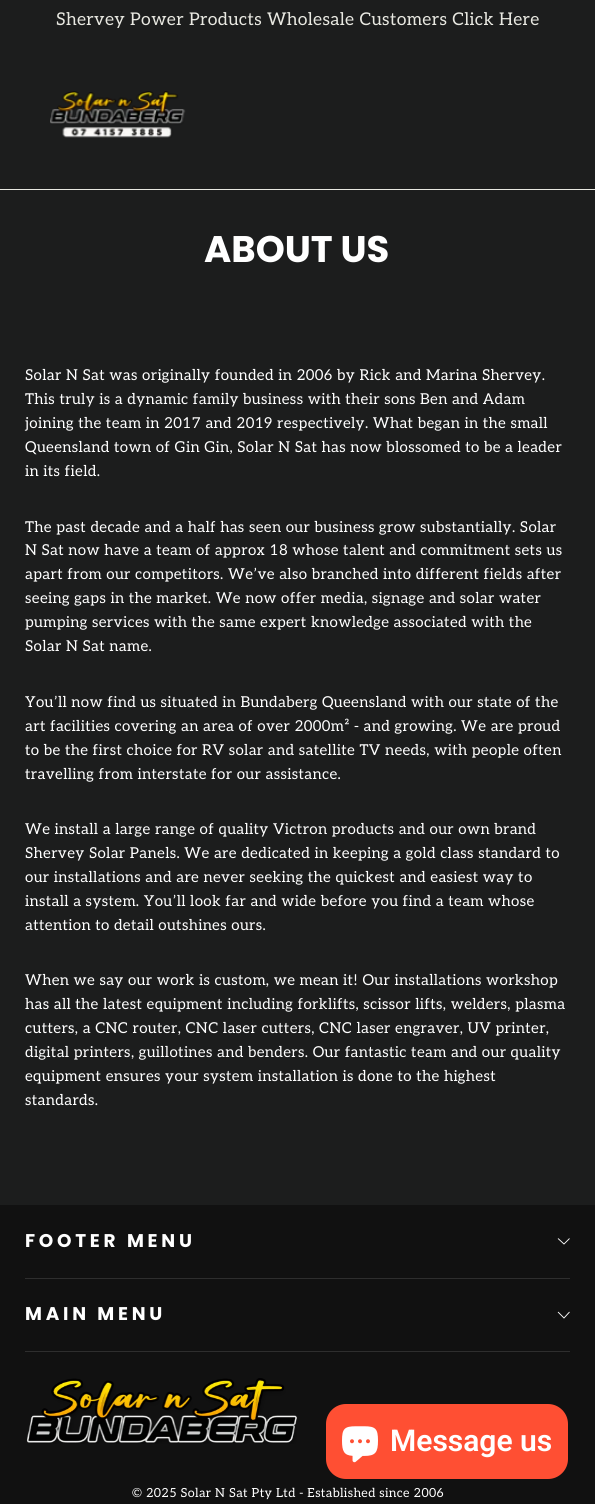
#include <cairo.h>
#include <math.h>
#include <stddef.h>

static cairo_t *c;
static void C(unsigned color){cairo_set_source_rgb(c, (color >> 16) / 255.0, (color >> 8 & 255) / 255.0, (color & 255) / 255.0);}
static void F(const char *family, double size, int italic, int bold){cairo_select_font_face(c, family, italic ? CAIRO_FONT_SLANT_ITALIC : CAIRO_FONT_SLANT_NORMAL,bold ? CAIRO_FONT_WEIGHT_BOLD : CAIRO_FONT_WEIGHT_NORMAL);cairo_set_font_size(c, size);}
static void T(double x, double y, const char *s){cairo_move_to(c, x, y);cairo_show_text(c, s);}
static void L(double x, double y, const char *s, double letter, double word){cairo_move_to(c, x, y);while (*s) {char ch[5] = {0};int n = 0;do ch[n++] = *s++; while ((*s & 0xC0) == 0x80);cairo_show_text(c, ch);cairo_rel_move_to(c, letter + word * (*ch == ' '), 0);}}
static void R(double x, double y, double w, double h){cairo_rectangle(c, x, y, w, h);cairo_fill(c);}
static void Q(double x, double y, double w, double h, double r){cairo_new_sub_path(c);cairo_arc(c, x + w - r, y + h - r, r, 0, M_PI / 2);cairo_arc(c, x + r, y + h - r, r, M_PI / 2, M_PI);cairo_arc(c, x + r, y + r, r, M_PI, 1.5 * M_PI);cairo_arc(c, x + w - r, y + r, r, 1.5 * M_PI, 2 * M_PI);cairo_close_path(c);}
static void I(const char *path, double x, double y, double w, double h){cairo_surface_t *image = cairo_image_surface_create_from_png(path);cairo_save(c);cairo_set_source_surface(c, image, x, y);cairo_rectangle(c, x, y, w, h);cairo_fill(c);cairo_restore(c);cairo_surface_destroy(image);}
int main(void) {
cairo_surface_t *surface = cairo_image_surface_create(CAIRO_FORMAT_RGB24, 595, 1504);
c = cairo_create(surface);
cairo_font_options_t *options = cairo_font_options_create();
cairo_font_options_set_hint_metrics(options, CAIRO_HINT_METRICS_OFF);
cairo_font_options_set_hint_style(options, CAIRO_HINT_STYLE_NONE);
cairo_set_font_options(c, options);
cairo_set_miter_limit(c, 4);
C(0x1c1d1d);
cairo_paint(c);
F("Aleo",17.5,0,0);
C(0xe8e8e1);
L(56,25,"Shervey Power Products Wholesale Customers Click Here",.38,0);
R(0,189,595,1);
I("1.png",50,91,136,47);
F("Poppins",37,0,1);
C(0xffffff);
T(204,262,"ABOUT US");
F("Aleo",15,0,0);
L(25,380,"Solar N Sat was originally founded in 2006 by Rick and Marina Shervey.",.38,0);
L(25,404,"This truly is a dynamic family business with their sons Ben and Adam",.38,0);
L(25,428,"joining the team in 2017 and 2019 respectively. What began in the small",.38,0);
L(25,452,"Queensland town of Gin Gin, Solar N Sat has now blossomed to be a leader",.38,0);
L(25,476,"in its field.",.38,0);
L(25,532,"The past decade and a half has seen our business grow substantially. Solar",.38,0);
L(25,555,"N Sat now have a team of approx 18 whose talent and commitment sets us",.38,0);
L(25,579,"apart from our competitors. We’ve also branched into different fields after",.38,0);
L(25,603,"seeing gaps in the market. We now offer media, signage and solar water",.38,0);
L(25,627,"pumping services with the same expert knowledge associated with the",.38,0);
L(25,651,"Solar N Sat name.",.38,0);
L(25,707,"You’ll now find us situated in Bundaberg Queensland with our state of the",.38,0);
L(25,731,"art facilities covering an area of over 2000m² - and growing. We are proud",.38,0);
L(25,755,"to be the first choice for RV solar and satellite TV needs, with people often",.38,0);
L(25,779,"travelling from interstate for our assistance.",.38,0);
L(25,834,"We install a large range of quality Victron products and our own brand",.38,0);
L(25,858,"Shervey Solar Panels. We are dedicated in keeping a gold class standard to",.38,0);
L(25,882,"our installations and are never seeking the quickest and easiest way to",.38,0);
L(25,906,"install a system. You’ll look far and wide before you find a team whose",.38,0);
L(25,930,"attention to detail outshines ours.",.38,0);
L(25,985,"When we say our work is custom, we mean it! Our installations workshop",.38,0);
L(25,1009,"has all the latest equipment including forklifts, scissor lifts, welders, plasma",.38,0);
L(25,1033,"cutters, a CNC router, CNC laser cutters, CNC laser engraver, UV printer,",.38,0);
L(25,1057,"digital printers, guillotines and benders. Our fantastic team and our quality",.38,0);
L(25,1081,"equipment ensures your system installation is done to the highest",.38,0);
L(25,1105,"standards.",.38,0);
C(0x111111);
R(0,1205,595,299);
F("Poppins",18.4,0,1);
C(0xffffff);
L(25,1247,"FOOTER MENU",3.75,0);
cairo_new_path(c);
cairo_move_to(c,558,1238.5);
cairo_line_to(c,564,1244);
cairo_line_to(c,569.5,1238.5);
cairo_set_line_width(c,.9);
cairo_stroke(c);
C(0x2e2e2e);
R(25,1278,545,1);
C(0xffffff);
L(25,1320,"MAIN MENU",3.75,0);
cairo_new_path(c);
cairo_move_to(c,558,1312);
cairo_line_to(c,564,1318);
cairo_line_to(c,569.5,1312);
cairo_stroke(c);
C(0x2e2e2e);
R(25,1351,545,1);
I("2.png",26,1378,271,66);
F("Aleo",12.5,0,0);
C(0xffffff);
L(132,1497,"© 2025 Solar N Sat Pty Ltd - Established since 2006",.38,0);
C(0xff4f33);
Q(326,1404,242,75,20);
cairo_fill(c);
I("3.png",342,1426,36,37);
F("Roboto SemiBold",30,0,0);
C(0xffffff);
T(390,1451,"Message us");
cairo_surface_write_to_png(surface, "o.png");
cairo_font_options_destroy(options);
cairo_destroy(c);
cairo_surface_destroy(surface);
return 0;
}
